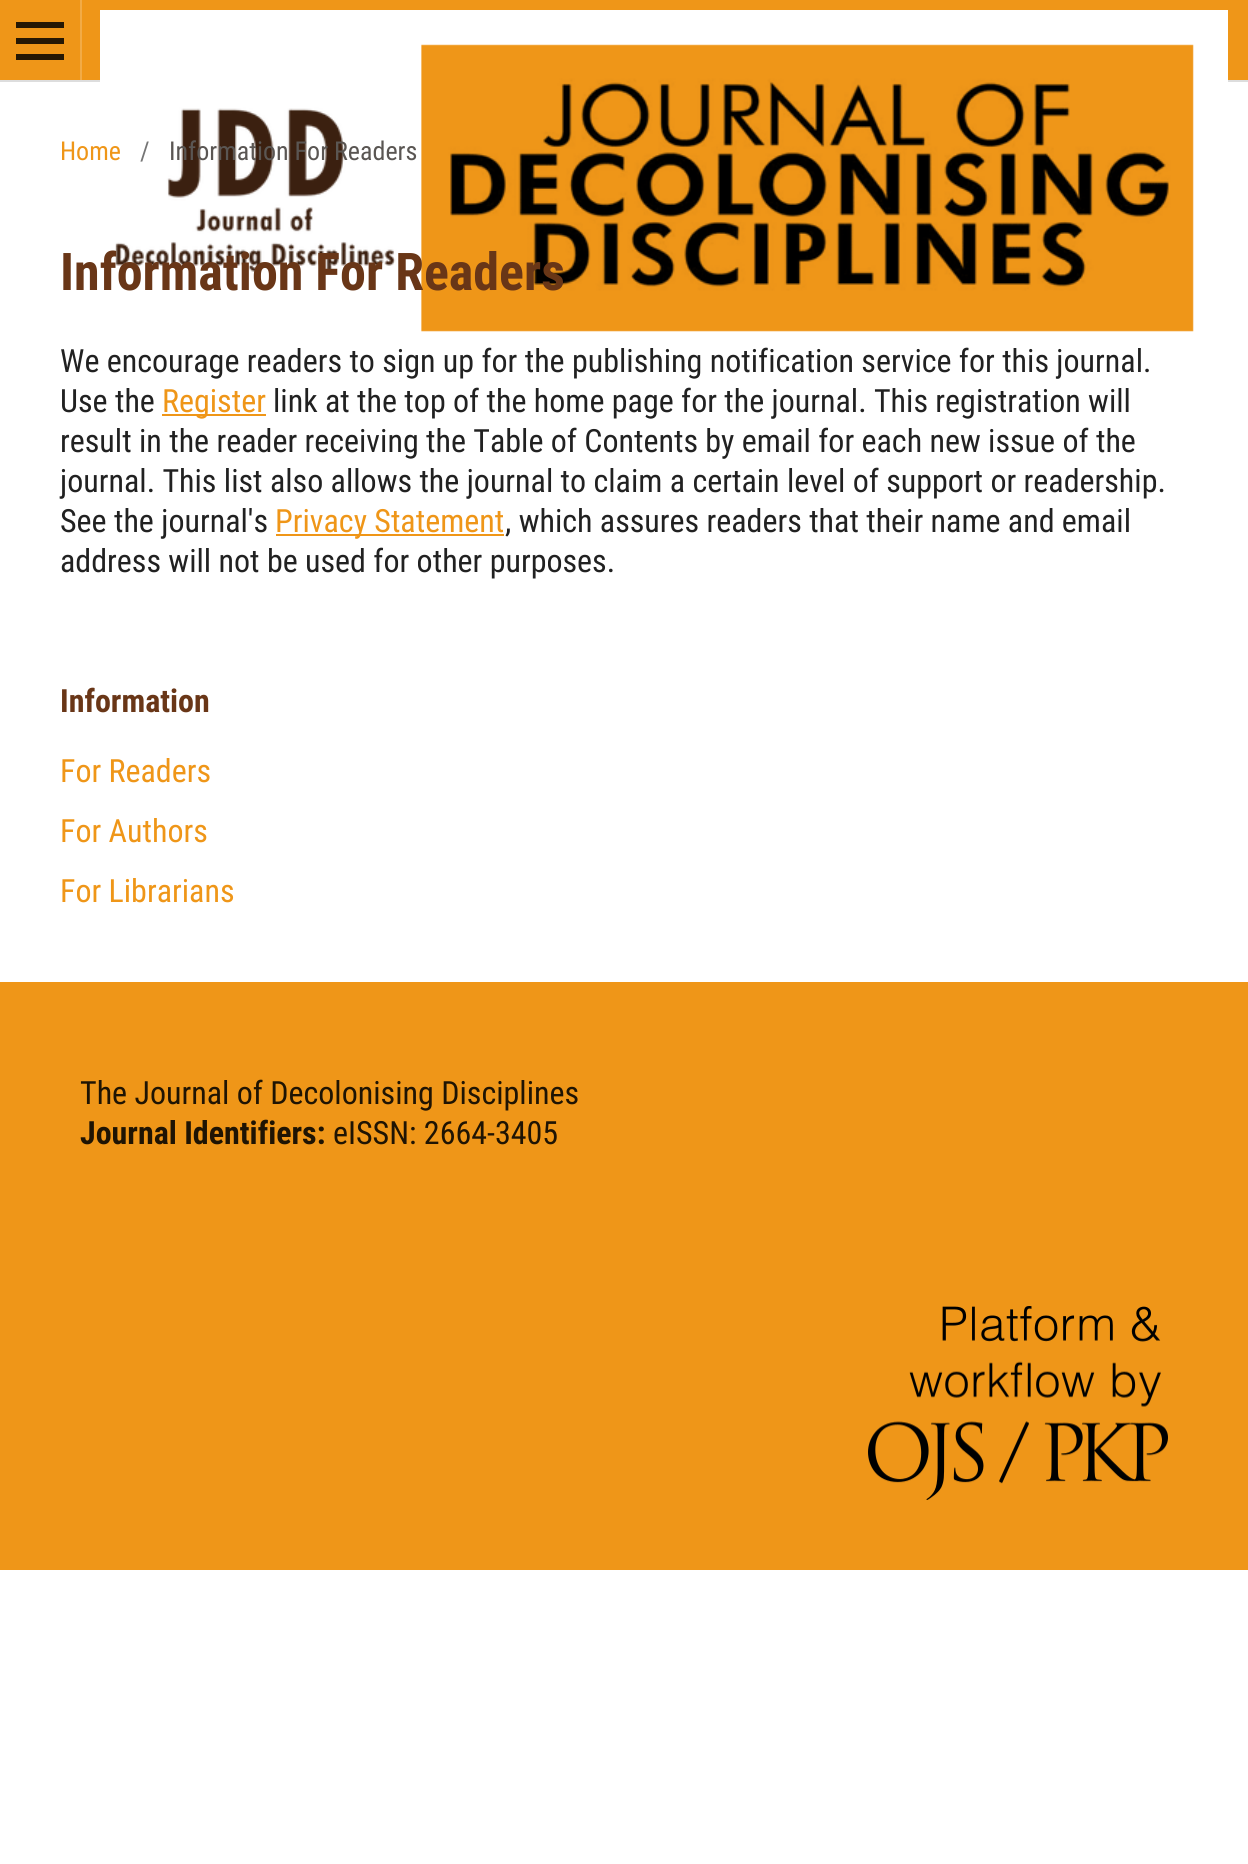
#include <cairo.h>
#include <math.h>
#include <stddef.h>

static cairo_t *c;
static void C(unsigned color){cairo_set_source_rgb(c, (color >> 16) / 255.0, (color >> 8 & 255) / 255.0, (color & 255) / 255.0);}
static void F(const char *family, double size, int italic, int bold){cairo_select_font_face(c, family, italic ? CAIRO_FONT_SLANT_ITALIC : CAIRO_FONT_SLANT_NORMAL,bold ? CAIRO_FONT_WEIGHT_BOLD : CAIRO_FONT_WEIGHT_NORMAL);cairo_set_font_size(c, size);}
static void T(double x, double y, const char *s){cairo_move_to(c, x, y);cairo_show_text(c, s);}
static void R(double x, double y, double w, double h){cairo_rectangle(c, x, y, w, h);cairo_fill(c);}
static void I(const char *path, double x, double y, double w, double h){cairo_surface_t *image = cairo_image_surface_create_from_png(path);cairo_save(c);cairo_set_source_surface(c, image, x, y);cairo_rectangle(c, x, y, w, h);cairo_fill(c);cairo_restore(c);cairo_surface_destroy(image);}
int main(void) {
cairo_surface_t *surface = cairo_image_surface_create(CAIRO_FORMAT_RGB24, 1248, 1864);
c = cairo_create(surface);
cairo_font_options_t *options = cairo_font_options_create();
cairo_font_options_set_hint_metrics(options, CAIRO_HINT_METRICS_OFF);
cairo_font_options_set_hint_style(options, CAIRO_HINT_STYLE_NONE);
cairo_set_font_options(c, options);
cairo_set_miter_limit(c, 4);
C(0xffffff);
cairo_paint(c);
C(0xef9618);
R(0,0,1248,80);
C(0xdddddd);
R(0,80,1248,2);
C(0xf2ab46);
R(80,0,2,80);
C(0x261804);
R(16,54,48,6);
R(16,22,48,6);
R(16,38,48,6);
I("1.png",100,10,1128,322);
F("Roboto Condensed",26,0,0);
C(0xef9618);
T(60,160,"Home");
C(0x757575);
T(140,160,"/");
C(0x5a5653);
T(169,160,"Information For Readers");
F("Roboto Condensed",52,0,1);
C(0x693617);
T(60,290,"Information For Readers");
F("Roboto Condensed",32,0,0);
C(0x212121);
T(60,372,"We encourage readers to sign up for the publishing notification service for this journal.");
T(60,412,"Use the");
C(0xef9618);
R(162,414,104,2);
T(162,412,"Register");
C(0x212121);
T(273,412,"link at the top of the home page for the journal. This registration will");
T(60,452,"result in the reader receiving the Table of Contents by email for each new issue of the");
T(60,492,"journal. This list also allows the journal to claim a certain level of support or readership.");
T(60,532,"See the journal's");
C(0xef9618);
R(276,534,228,2);
T(275,532,"Privacy Statement");
C(0x212121);
T(505,532,", which assures readers that their name and email");
T(60,572,"address will not be used for other purposes.");
F("Roboto Condensed",32,0,1);
C(0x693617);
T(60,712,"Information");
F("Roboto Condensed",32,0,0);
C(0xef9618);
T(60,782,"For Readers");
T(60,842,"For Authors");
T(60,902,"For Librarians");
R(0,982,1248,588);
C(0x1f1403);
T(80,1104,"The Journal of Decolonising Disciplines");
F("Roboto Condensed",32,0,1);
T(80,1144,"Journal Identifiers:");
F("Roboto Condensed",32,0,0);
T(333,1144,"eISSN: 2664-3405");
I("2.png",868,1306,300,194);
cairo_surface_write_to_png(surface, "o.png");
cairo_font_options_destroy(options);
cairo_destroy(c);
cairo_surface_destroy(surface);
return 0;
}
